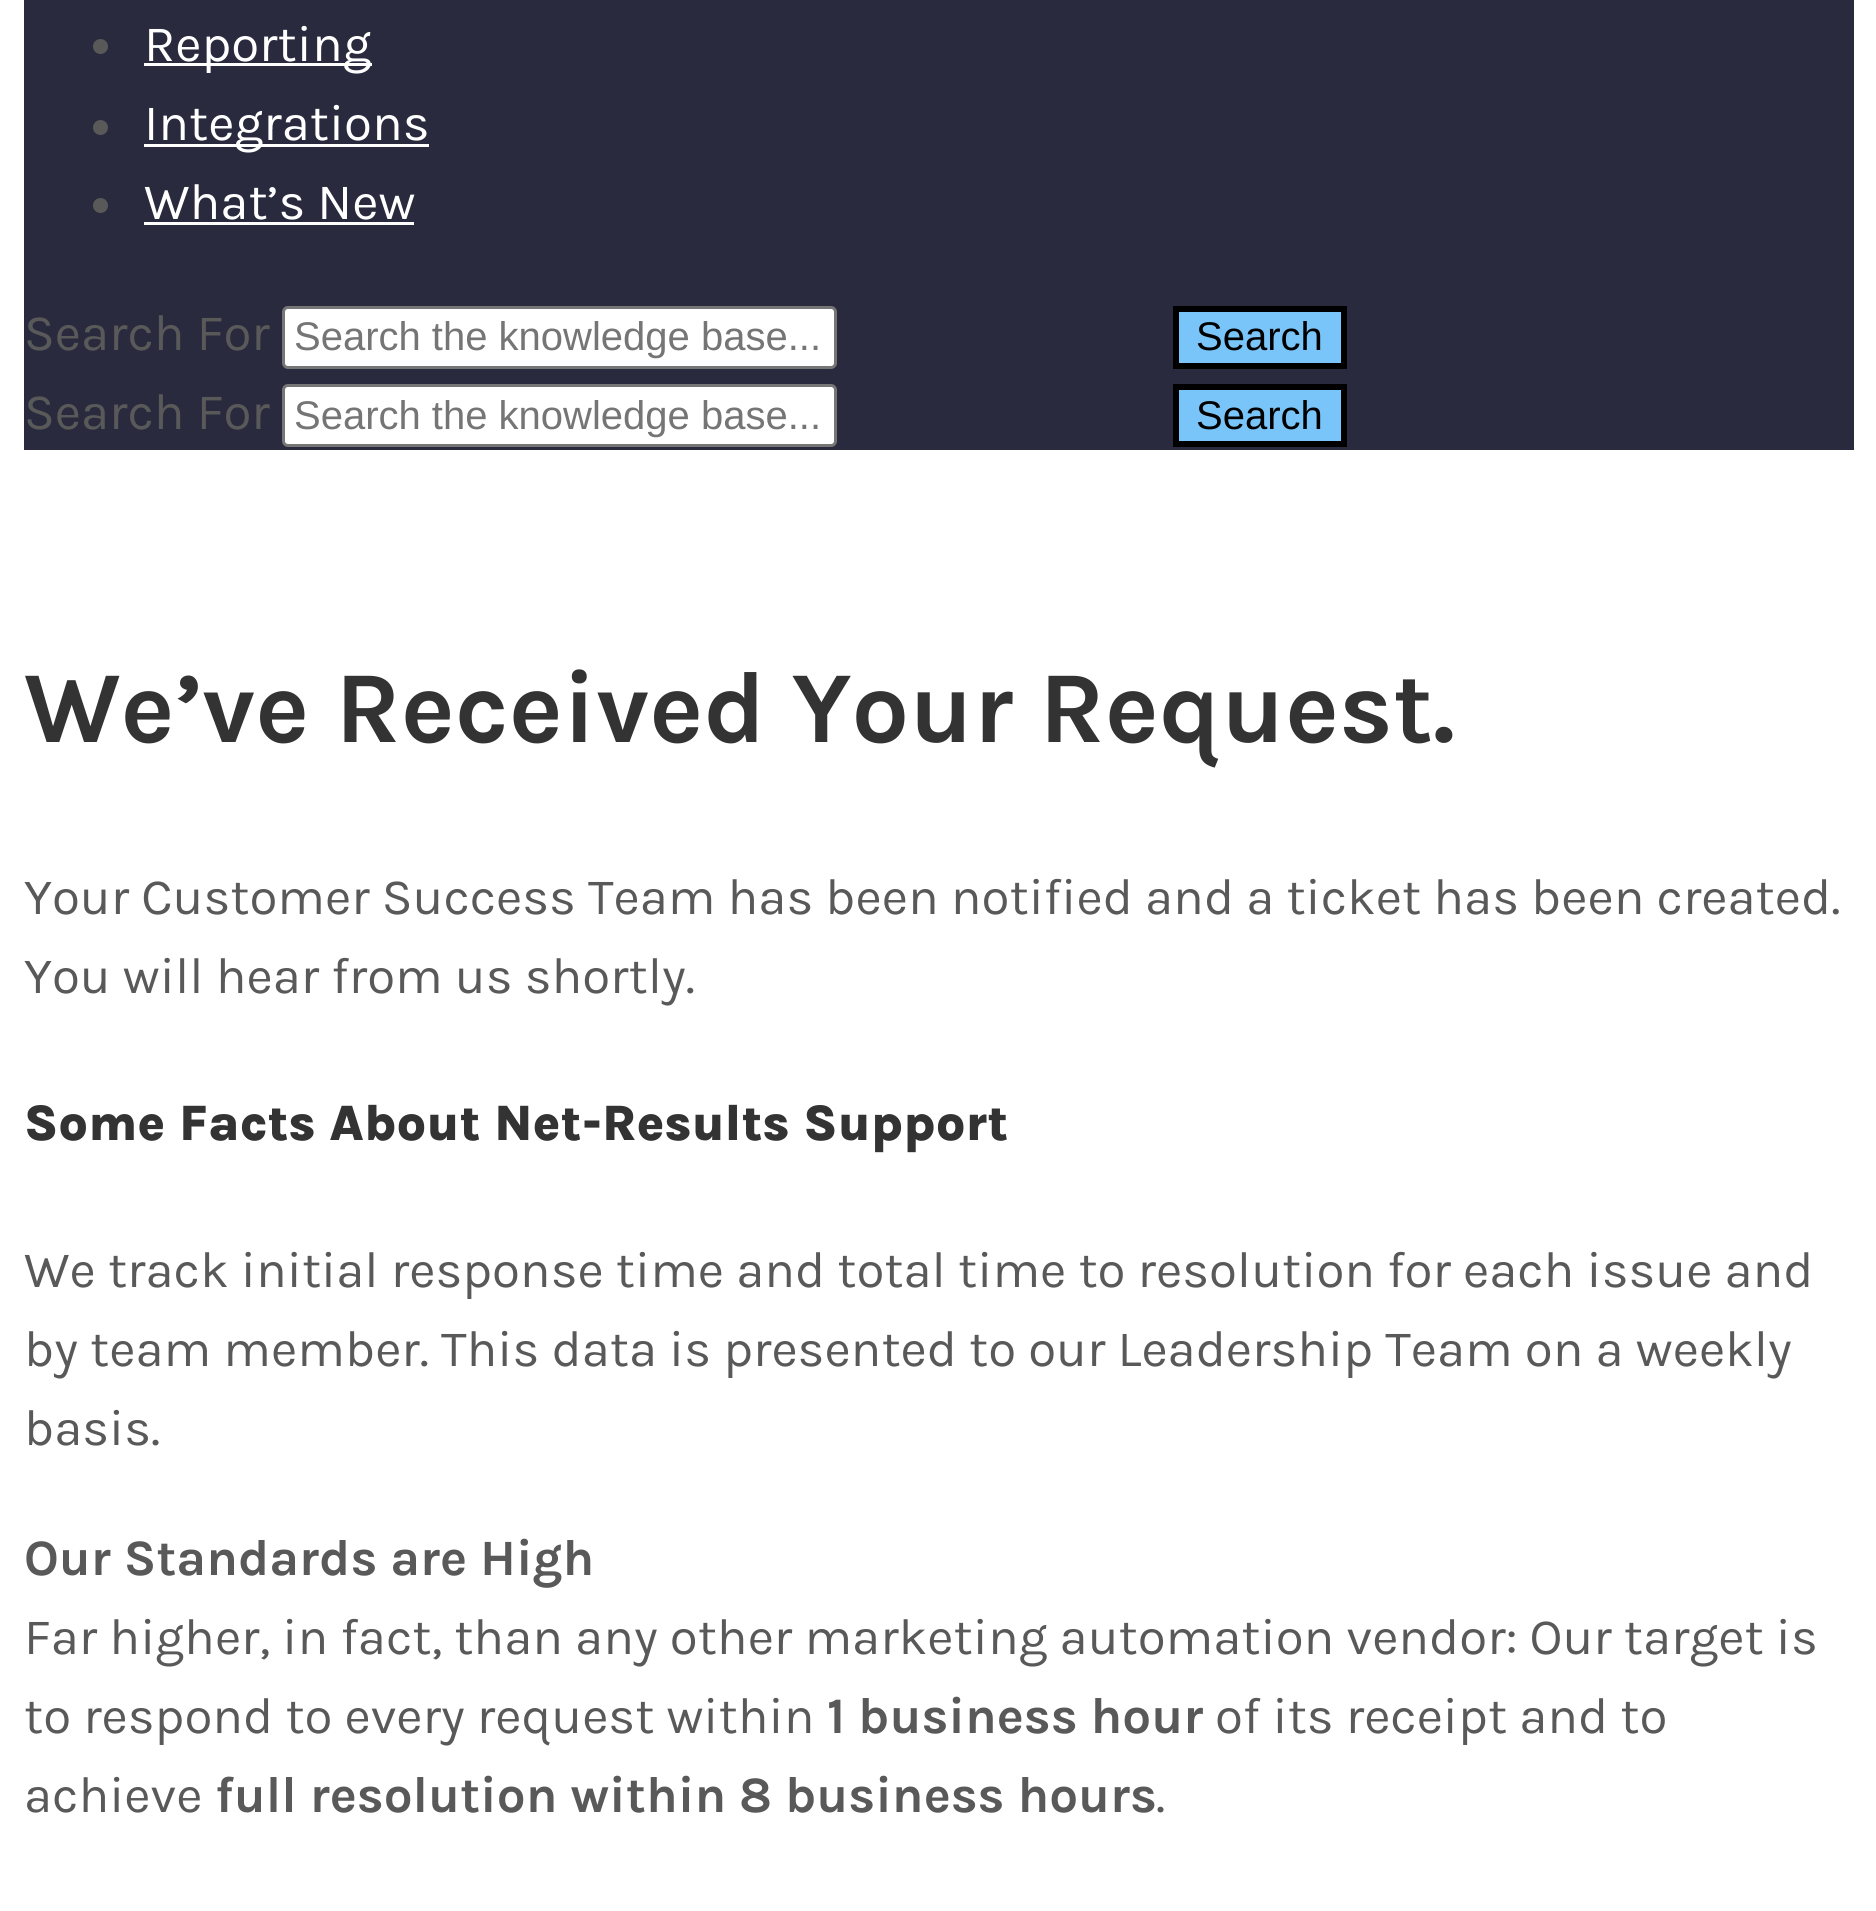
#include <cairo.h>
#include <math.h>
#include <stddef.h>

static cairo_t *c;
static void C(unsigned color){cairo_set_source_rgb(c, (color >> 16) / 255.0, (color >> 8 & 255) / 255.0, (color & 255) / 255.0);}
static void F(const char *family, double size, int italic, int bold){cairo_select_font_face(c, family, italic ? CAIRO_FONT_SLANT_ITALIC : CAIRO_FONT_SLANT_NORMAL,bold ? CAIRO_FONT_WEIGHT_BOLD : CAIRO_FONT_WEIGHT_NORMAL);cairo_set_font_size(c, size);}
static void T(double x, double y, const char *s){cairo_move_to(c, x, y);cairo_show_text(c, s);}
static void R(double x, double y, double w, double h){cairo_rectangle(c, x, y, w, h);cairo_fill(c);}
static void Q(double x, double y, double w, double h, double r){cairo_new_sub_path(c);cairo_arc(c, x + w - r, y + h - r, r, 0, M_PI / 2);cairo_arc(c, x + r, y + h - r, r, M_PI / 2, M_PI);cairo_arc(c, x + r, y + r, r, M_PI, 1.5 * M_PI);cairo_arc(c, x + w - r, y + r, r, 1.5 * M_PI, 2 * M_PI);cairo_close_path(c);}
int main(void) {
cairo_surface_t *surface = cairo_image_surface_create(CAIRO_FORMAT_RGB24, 1876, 1911);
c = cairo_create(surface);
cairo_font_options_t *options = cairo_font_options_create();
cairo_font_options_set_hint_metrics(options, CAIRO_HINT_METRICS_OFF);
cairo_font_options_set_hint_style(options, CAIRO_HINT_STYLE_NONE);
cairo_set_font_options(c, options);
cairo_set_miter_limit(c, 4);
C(0xffffff);
cairo_paint(c);
C(0x292a3d);
R(24,0,1830,450);
C(0x595959);
cairo_arc(c,100.5,46.5,7.5,0,2 * M_PI);
cairo_fill(c);
C(0xffffff);
R(144,63,228,3);
F("Karla",51,0,0);
T(144,61,"Reporting");
C(0x595959);
cairo_new_path(c);
cairo_arc(c,100.5,127.5,7.5,0,2 * M_PI);
cairo_fill(c);
C(0xffffff);
R(144,144,285,3);
T(144,140,"Integrations");
C(0x595959);
cairo_new_path(c);
cairo_arc(c,100.5,205.5,7.5,0,2 * M_PI);
cairo_fill(c);
C(0xffffff);
T(144,219,"What’s New");
R(144,222,270,3);
C(0x595959);
T(24,350,"Search For");
C(0xffffff);
Q(283.5,307.5,552,60,4.5);
cairo_fill_preserve(c);
C(0x767676);
cairo_set_line_width(c,3);
cairo_stroke(c);
F("Liberation Sans",40,0,0);
C(0x757575);
T(294,350,"Search the knowledge base...");
C(0x79c4f8);
cairo_rectangle(c,1176,309,168,57);
cairo_fill_preserve(c);
C(0x000000);
cairo_set_line_width(c,6);
cairo_stroke(c);
T(1196,350,"Search");
F("Karla",51,0,0);
C(0x595959);
T(24,429,"Search For");
C(0xffffff);
Q(283.5,385.5,552,60,4.5);
cairo_fill_preserve(c);
C(0x767676);
cairo_set_line_width(c,3);
cairo_stroke(c);
F("Liberation Sans",40,0,0);
C(0x757575);
T(294,429,"Search the knowledge base...");
C(0x79c4f8);
cairo_rectangle(c,1176,387,168,57);
cairo_fill_preserve(c);
C(0x000000);
cairo_set_line_width(c,6);
cairo_stroke(c);
T(1196,429,"Search");
F("Karla",102,0,1);
C(0x333333);
T(24,742,"We’ve Received Your Request.");
F("Karla",51,0,0);
C(0x595959);
T(24,914,"Your Customer Success Team has been notified and a ticket has been created.");
T(24,993,"You will hear from us shortly.");
F("Karla ExtraBold",51,0,0);
C(0x333333);
T(24,1140,"Some Facts About Net-Results Support");
F("Karla",51,0,0);
C(0x595959);
T(24,1287,"We track initial response time and total time to resolution for each issue and");
T(24,1366,"by team member. This data is presented to our Leadership Team on a weekly");
T(24,1445,"basis.");
F("Karla",51,0,1);
T(24,1575,"Our Standards are High");
F("Karla",51,0,0);
T(24,1654,"Far higher, in fact, than any other marketing automation vendor: Our target is");
T(24,1733,"to respond to every request within");
F("Karla",51,0,1);
T(827,1733,"1 business hour");
F("Karla",51,0,0);
T(1215,1733,"of its receipt and to");
T(24,1812,"achieve");
F("Karla",51,0,1);
T(215,1812,"full resolution within 8 business hours");
F("Karla",51,0,0);
T(1156,1812,".");
cairo_surface_write_to_png(surface, "o.png");
cairo_font_options_destroy(options);
cairo_destroy(c);
cairo_surface_destroy(surface);
return 0;
}
